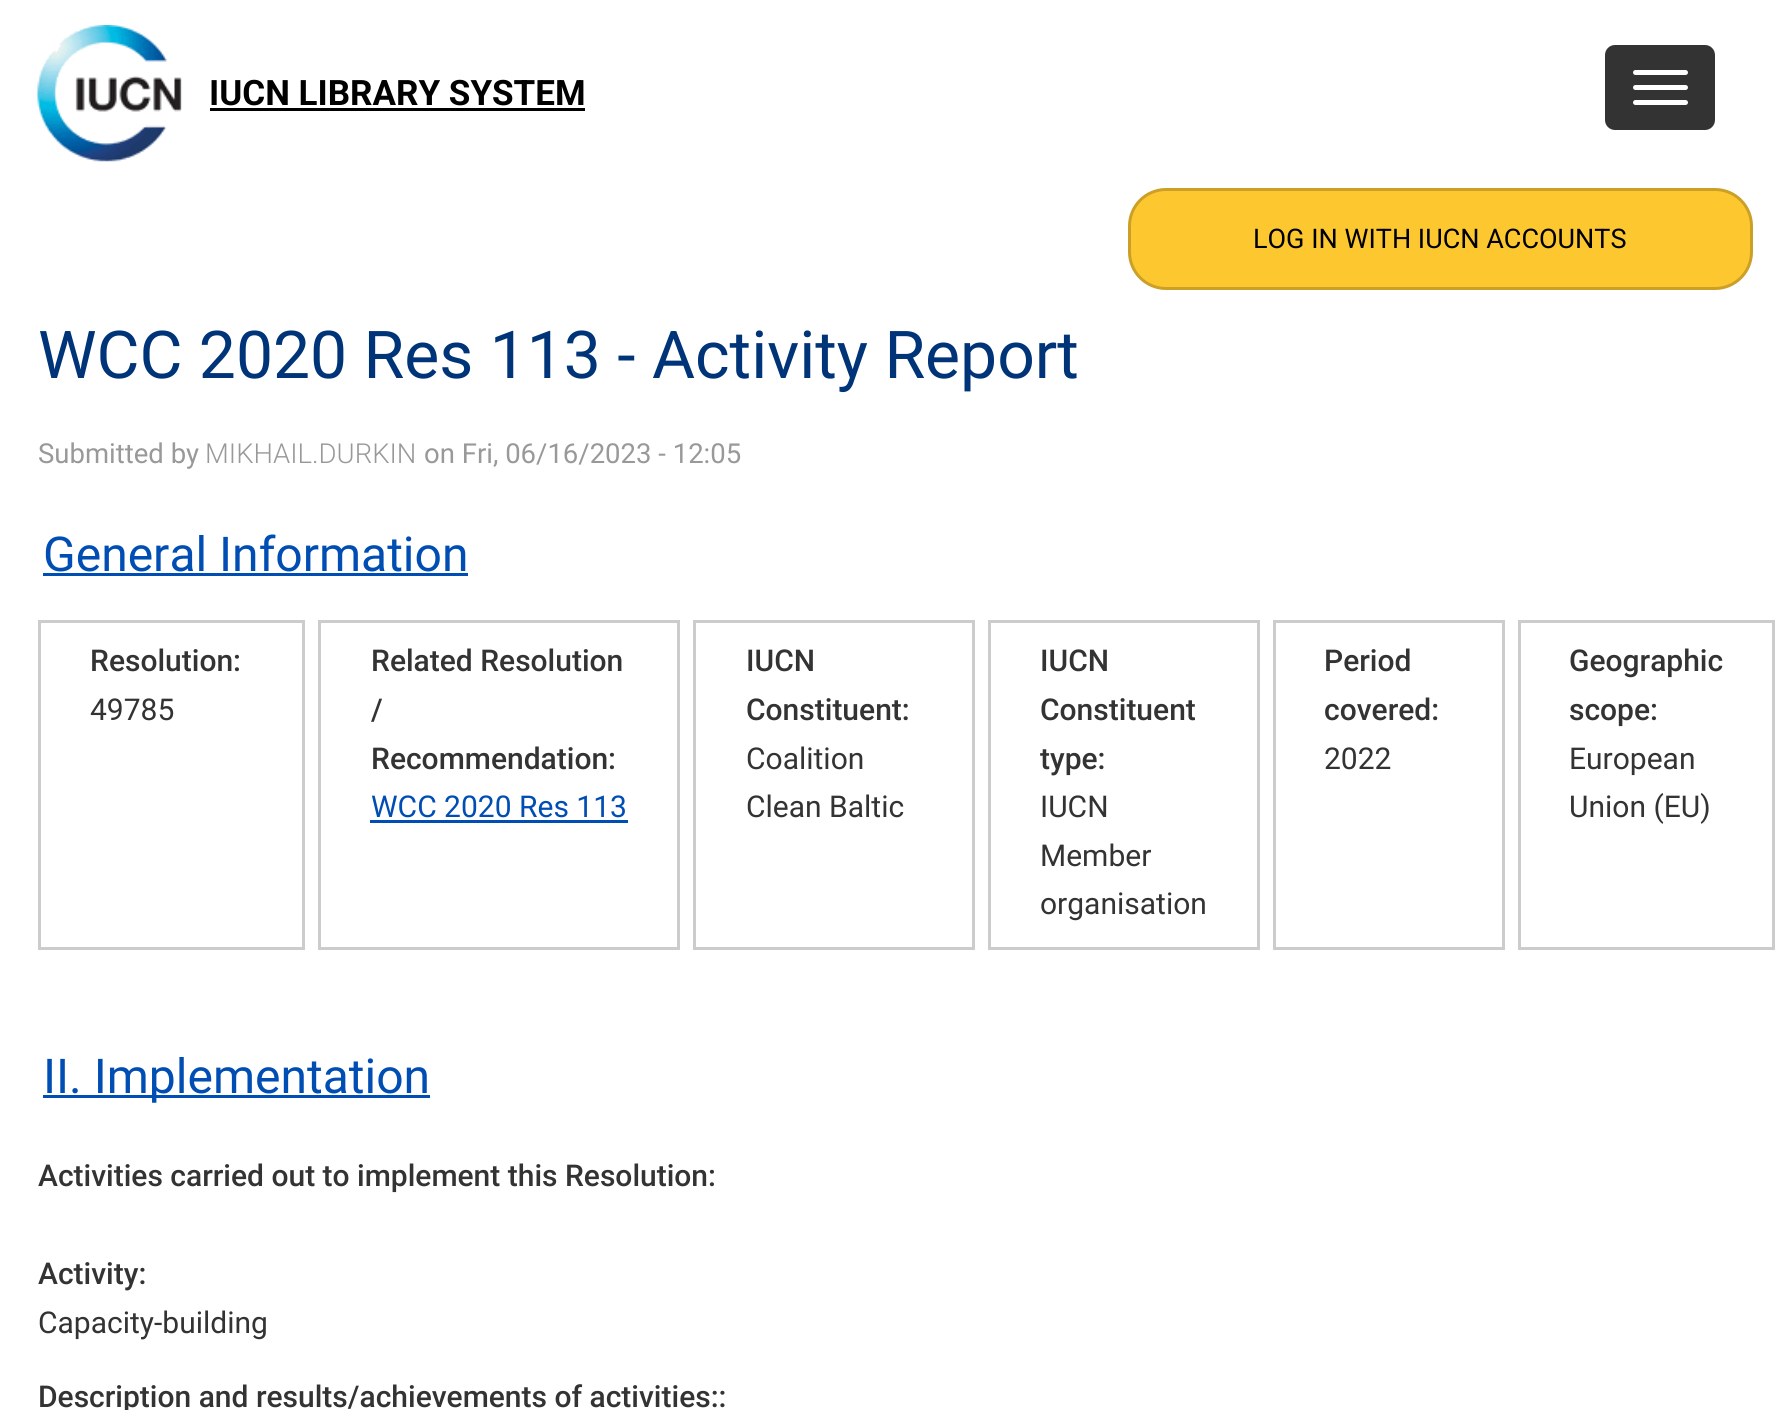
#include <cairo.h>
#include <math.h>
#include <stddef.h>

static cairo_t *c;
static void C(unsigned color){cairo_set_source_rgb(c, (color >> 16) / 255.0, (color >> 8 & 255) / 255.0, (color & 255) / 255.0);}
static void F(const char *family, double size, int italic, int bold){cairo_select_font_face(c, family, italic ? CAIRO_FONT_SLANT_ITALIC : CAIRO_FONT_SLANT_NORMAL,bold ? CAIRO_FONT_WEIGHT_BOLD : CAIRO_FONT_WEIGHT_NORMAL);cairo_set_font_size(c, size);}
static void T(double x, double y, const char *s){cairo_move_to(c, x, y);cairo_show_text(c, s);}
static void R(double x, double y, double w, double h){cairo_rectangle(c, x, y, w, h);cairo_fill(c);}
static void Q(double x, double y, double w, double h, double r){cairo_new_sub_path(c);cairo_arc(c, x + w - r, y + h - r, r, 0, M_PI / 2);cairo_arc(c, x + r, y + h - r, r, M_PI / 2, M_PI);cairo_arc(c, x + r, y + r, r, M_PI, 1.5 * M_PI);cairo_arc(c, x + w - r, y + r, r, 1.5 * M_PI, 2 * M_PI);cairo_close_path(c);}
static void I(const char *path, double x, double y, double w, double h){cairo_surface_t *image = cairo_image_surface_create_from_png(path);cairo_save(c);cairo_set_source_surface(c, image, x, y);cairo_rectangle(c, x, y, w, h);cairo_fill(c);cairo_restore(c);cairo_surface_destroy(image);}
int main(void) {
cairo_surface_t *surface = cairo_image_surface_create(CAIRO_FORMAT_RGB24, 1790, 1410);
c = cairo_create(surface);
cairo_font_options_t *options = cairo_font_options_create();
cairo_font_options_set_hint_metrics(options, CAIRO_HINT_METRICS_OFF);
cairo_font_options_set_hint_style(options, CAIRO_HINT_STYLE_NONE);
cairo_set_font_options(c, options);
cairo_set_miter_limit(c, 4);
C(0xffffff);
cairo_paint(c);
I("1.png",37,25,145,137);
F("Roboto",35,0,1);
C(0x000000);
T(209,105,"IUCN LIBRARY SYSTEM");
R(210,108,375,3);
C(0x333333);
Q(1605,45,110,85,10);
cairo_fill(c);
C(0xffffff);
Q(1633,70,55,5,2.5);
cairo_fill(c);
Q(1633,85,55,5,2.5);
cairo_fill(c);
Q(1633,100,55,5,2.5);
cairo_fill(c);
C(0xfdc82f);
Q(1129.5,189.5,622,99,36.5);
cairo_fill_preserve(c);
C(0xcc9f26);
cairo_set_line_width(c,3);
cairo_stroke(c);
F("Roboto",27,0,0);
C(0x000000);
T(1253,248,"LOG IN WITH IUCN ACCOUNTS");
F("Roboto",66,0,0);
C(0x003478);
T(38,378,"WCC 2020 Res 113 - Activity Report");
F("Roboto",27.5,0,0);
C(0x999999);
T(38,463,"Submitted by");
F("Roboto Light",27.5,0,0);
T(205,463,"MIKHAIL.DURKIN");
F("Roboto",27.5,0,0);
T(424,463,"on Fri, 06/16/2023 - 12:05");
F("Roboto",48,0,0);
C(0x004db3);
T(43,571,"General Information");
R(43,573,425,3);
cairo_rectangle(c,39.5,621.5,264,327);
C(0xcccccc);
cairo_stroke(c);
F("Roboto Medium",30,0,0);
C(0x333333);
T(90,671,"Resolution:");
F("Roboto",30,0,0);
T(90,720,"49785");
cairo_rectangle(c,319.5,621.5,359,327);
C(0xcccccc);
cairo_stroke(c);
F("Roboto Medium",30,0,0);
C(0x333333);
T(371,671,"Related Resolution");
T(371,720,"/");
T(371,769,"Recommendation:");
F("Roboto",30,0,0);
C(0x004db3);
T(371,817,"WCC 2020 Res 113");
R(370,820,258,3);
cairo_rectangle(c,694.5,621.5,279,327);
C(0xcccccc);
cairo_stroke(c);
F("Roboto Medium",30,0,0);
C(0x333333);
T(746,671,"IUCN");
T(746,720,"Constituent:");
F("Roboto",30,0,0);
T(746,769,"Coalition");
T(746,817,"Clean Baltic");
cairo_rectangle(c,989.5,621.5,269,327);
C(0xcccccc);
cairo_stroke(c);
F("Roboto Medium",30,0,0);
C(0x333333);
T(1040,671,"IUCN");
T(1040,720,"Constituent");
T(1040,769,"type:");
F("Roboto",30,0,0);
T(1040,817,"IUCN");
T(1040,866,"Member");
T(1040,914,"organisation");
cairo_rectangle(c,1274.5,621.5,229,327);
C(0xcccccc);
cairo_stroke(c);
F("Roboto Medium",30,0,0);
C(0x333333);
T(1324,671,"Period");
T(1324,720,"covered:");
F("Roboto",30,0,0);
T(1324,769,"2022");
cairo_rectangle(c,1519.5,621.5,254,327);
C(0xcccccc);
cairo_stroke(c);
F("Roboto Medium",30,0,0);
C(0x333333);
T(1569,671,"Geographic");
T(1569,720,"scope:");
F("Roboto",30,0,0);
T(1569,769,"European");
T(1569,817,"Union (EU)");
C(0x004db3);
R(43,1095,387,3);
F("Roboto",48,0,0);
T(43,1093,"II. Implementation");
F("Roboto Medium",30,0,0);
C(0x333333);
T(38,1186,"Activities carried out to implement this Resolution:");
T(38,1284,"Activity:");
F("Roboto",30,0,0);
T(38,1333,"Capacity-building");
F("Roboto Medium",30,0,0);
T(38,1407,"Description and results/achievements of activities::");
cairo_surface_write_to_png(surface, "o.png");
cairo_font_options_destroy(options);
cairo_destroy(c);
cairo_surface_destroy(surface);
return 0;
}
